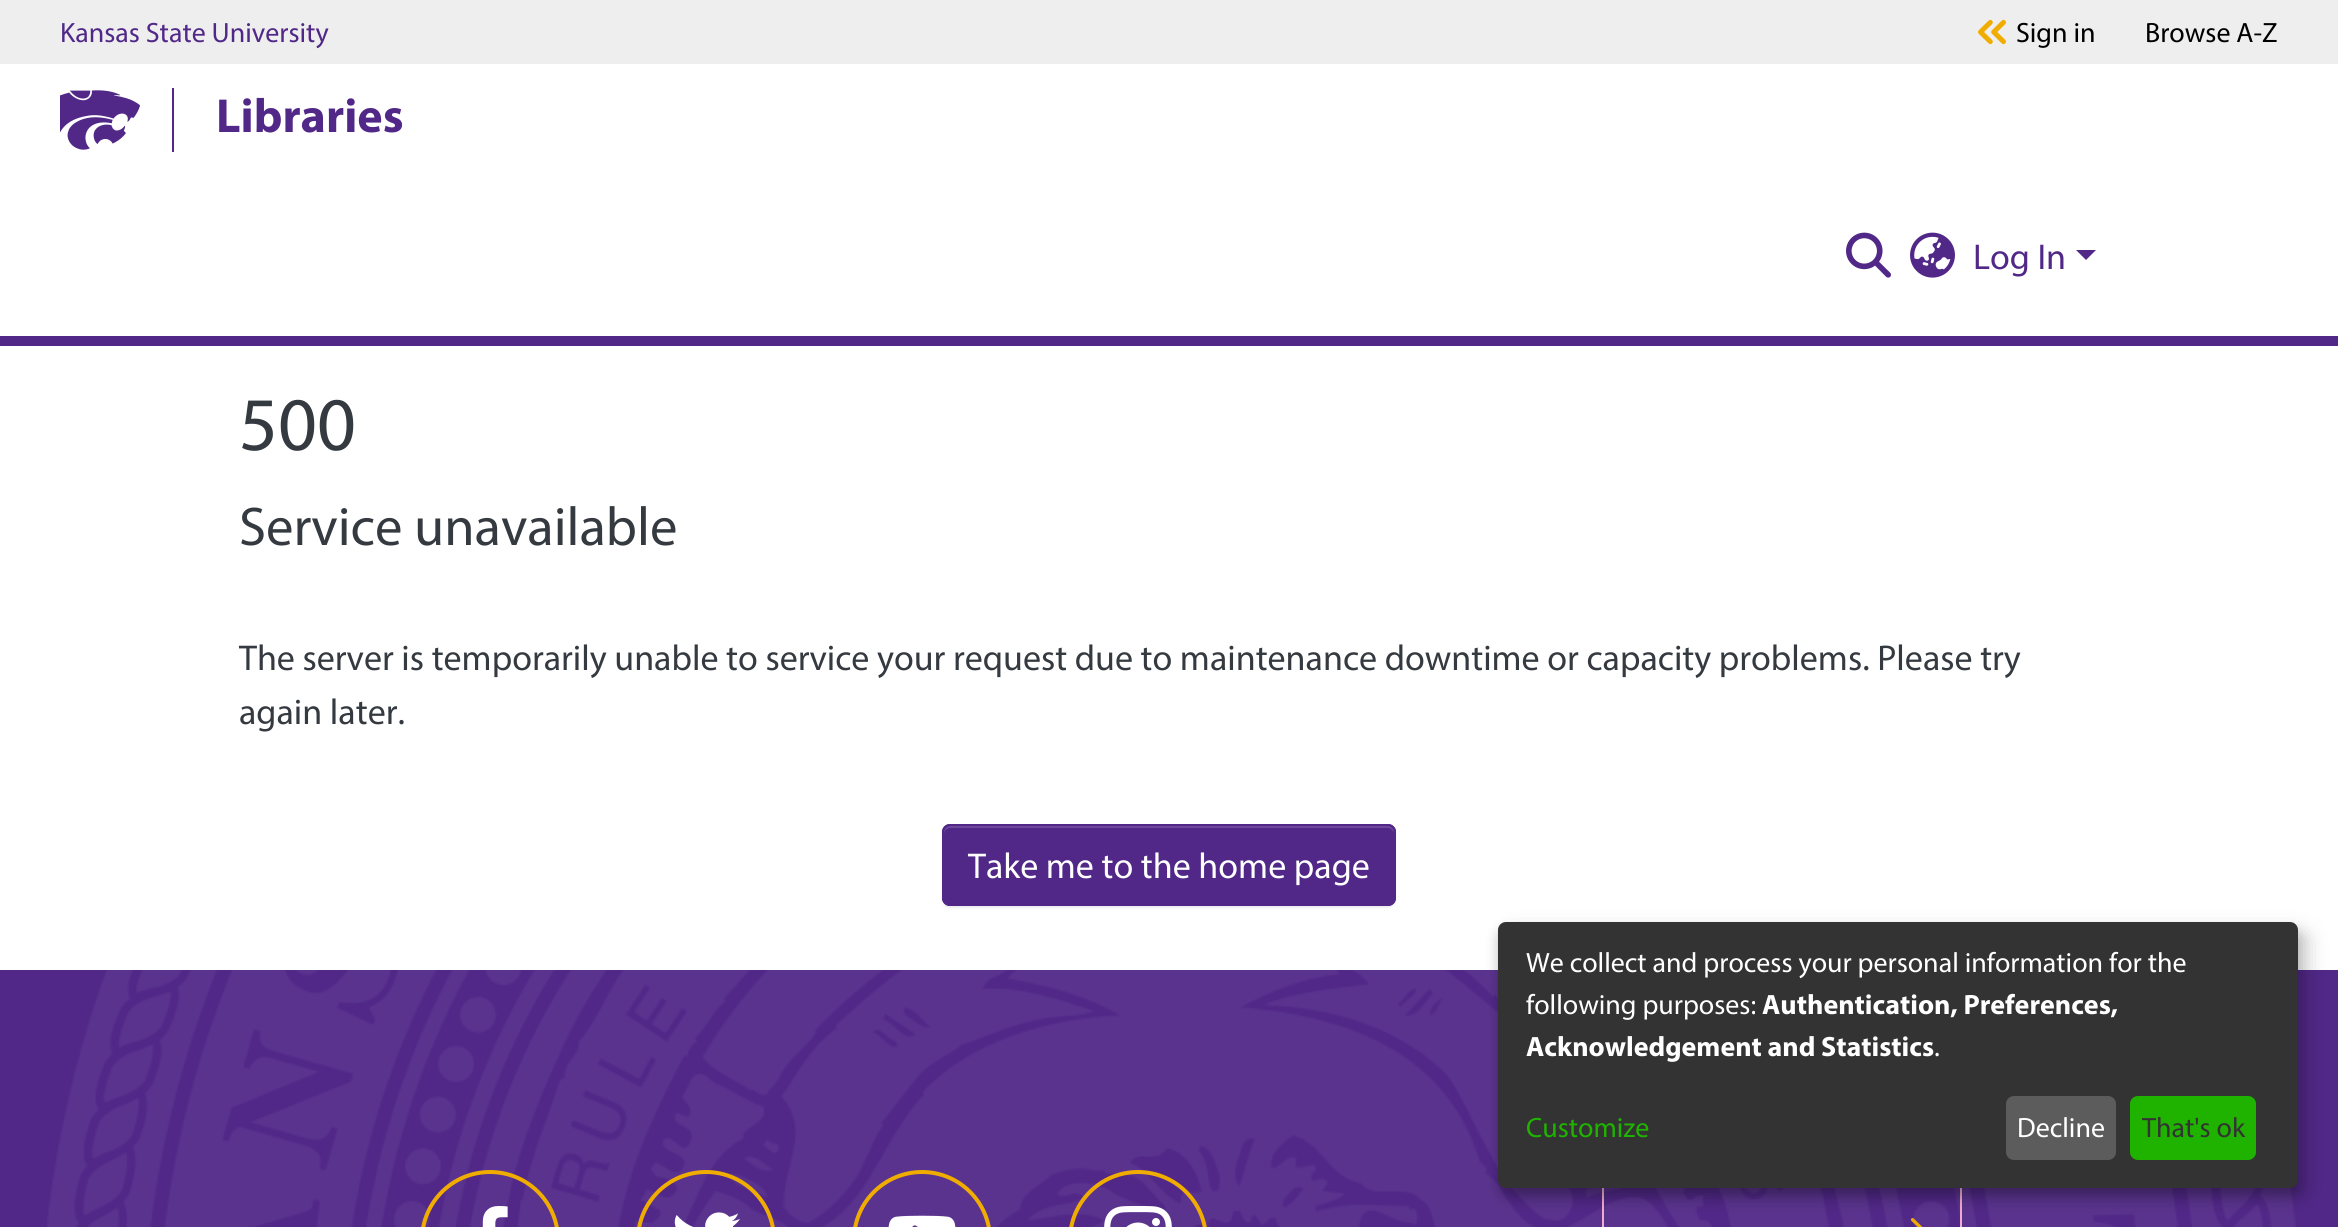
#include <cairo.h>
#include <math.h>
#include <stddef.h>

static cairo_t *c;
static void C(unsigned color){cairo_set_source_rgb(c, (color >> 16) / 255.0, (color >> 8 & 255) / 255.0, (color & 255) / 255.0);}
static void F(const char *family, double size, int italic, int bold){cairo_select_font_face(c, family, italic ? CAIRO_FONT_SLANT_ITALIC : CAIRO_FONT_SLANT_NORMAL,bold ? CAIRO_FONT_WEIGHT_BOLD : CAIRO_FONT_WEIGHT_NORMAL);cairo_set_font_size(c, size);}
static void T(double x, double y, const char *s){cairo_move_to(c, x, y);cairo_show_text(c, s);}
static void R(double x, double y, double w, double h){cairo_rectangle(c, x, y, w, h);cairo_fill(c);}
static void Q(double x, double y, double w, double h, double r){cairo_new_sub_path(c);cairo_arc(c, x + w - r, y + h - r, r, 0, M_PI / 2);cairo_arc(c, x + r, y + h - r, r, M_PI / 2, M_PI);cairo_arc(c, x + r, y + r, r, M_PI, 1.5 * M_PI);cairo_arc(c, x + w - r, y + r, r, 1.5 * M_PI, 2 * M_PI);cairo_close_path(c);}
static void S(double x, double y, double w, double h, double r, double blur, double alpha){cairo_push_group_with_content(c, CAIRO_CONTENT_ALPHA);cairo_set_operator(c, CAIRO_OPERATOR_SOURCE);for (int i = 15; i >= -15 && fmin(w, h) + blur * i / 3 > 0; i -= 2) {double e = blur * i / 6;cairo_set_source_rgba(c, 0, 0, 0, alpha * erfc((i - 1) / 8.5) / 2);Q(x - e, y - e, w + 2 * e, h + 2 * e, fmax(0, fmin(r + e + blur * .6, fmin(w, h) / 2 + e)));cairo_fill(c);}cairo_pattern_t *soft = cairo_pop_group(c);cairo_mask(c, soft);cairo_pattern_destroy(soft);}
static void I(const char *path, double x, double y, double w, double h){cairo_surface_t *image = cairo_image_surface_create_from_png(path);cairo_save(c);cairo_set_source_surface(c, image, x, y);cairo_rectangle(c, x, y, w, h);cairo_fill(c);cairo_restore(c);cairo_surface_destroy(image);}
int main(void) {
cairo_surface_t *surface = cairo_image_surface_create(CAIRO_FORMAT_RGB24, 2338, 1227);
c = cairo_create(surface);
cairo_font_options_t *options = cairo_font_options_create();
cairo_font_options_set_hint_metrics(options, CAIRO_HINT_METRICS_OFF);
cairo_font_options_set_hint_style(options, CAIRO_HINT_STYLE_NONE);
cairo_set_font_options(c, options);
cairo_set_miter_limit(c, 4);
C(0xffffff);
cairo_paint(c);
C(0x512888);
R(0,336,2338,10);
C(0xeeeeee);
R(0,0,2338,64);
F("Myriad",28,0,0);
C(0x512888);
T(60,42,"Kansas State University");
I("1.png",1978,19,28,26);
C(0x000000);
T(2016,42,"Sign in");
T(2145,42,"Browse A-Z");
I("2.png",60,90,80,60);
C(0x512888);
R(172,88,2,64);
F("Myriad",48,0,1);
T(216,132,"Libraries");
I("3.png",1846,232,45,46);
I("4.png",1910,232,45,46);
F("Myriad",36,0,0);
T(1973,269,"Log In");
cairo_new_path(c);
cairo_move_to(c,2076,250);
cairo_line_to(c,2096,250);
cairo_line_to(c,2086,260);
cairo_close_path(c);
cairo_fill(c);
F("Myriad",76,0,0);
C(0x343a40);
T(239,450,"500");
F("Myriad",54.75,0,0);
T(239,545,"Service unavailable");
F("Myriad",36,0,0);
T(239,670,"The server is temporarily unable to service your request due to maintenance downtime or capacity problems. Please try");
T(239,724,"again later.");
C(0x000000);
S(942,826,454,82,8,1,.07);
C(0x512888);
Q(942,824,454,82,8);
cairo_fill(c);
C(0x6b489a);
cairo_new_path(c);
cairo_move_to(c,950,828);
cairo_line_to(c,1388,828);
cairo_curve_to(c,1391,828,1394,831,1394,834);
cairo_line_to(c,1394,832);
cairo_curve_to(c,1394,829,1391,826,1388,826);
cairo_line_to(c,950,826);
cairo_curve_to(c,947,826,944,829,944,832);
cairo_line_to(c,944,834);
cairo_curve_to(c,944,831,947,828,950,828);
cairo_close_path(c);
cairo_fill(c);
Q(943,825,452,80,7);
C(0x512888);
cairo_stroke(c);
C(0xffffff);
T(968,878,"Take me to the home page");
C(0x512888);
R(0,970,2338,257);
I("5.png",47,970,2249,257);
Q(422,1172,136,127,68);
C(0xf0ad00);
cairo_set_line_width(c,4);
cairo_stroke(c);
I("6.png",482,1206,26,21);
Q(638,1172,136,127,68);
cairo_stroke(c);
I("7.png",674,1212,66,15);
Q(854,1172,136,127,68);
cairo_stroke(c);
I("8.png",888,1215,68,12);
Q(1070,1172,136,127,68);
cairo_stroke(c);
I("9.png",1104,1206,68,21);
cairo_rectangle(c,1603,1171,358,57);
C(0xf0add0);
cairo_set_line_width(c,2);
cairo_stroke(c);
I("10.png",1910,1218,13,9);
C(0x000000);
S(1508,932,800,266,8,10,.19);
S(1498,930,800,266,8,6,.2);
C(0x333333);
Q(1498,922,800,266,8);
cairo_fill(c);
F("Myriad",28,0,0);
C(0xffffff);
T(1526,972,"We collect and process your personal information for the");
T(1526,1014,"following purposes:");
F("Myriad",28,0,1);
T(1762,1014,"Authentication, Preferences,");
T(1526,1056,"Acknowledgement and Statistics");
F("Myriad",28,0,0);
T(1934,1056,".");
C(0x1fb300);
T(1526,1137,"Customize");
C(0x5c5c5c);
Q(2006,1096,110,64,8);
cairo_fill(c);
C(0xffffff);
T(2017,1137,"Decline");
C(0x1fb300);
Q(2130,1096,126,64,8);
cairo_fill(c);
C(0x333333);
T(2142,1137,"That's ok");
cairo_surface_write_to_png(surface, "o.png");
cairo_font_options_destroy(options);
cairo_destroy(c);
cairo_surface_destroy(surface);
return 0;
}
